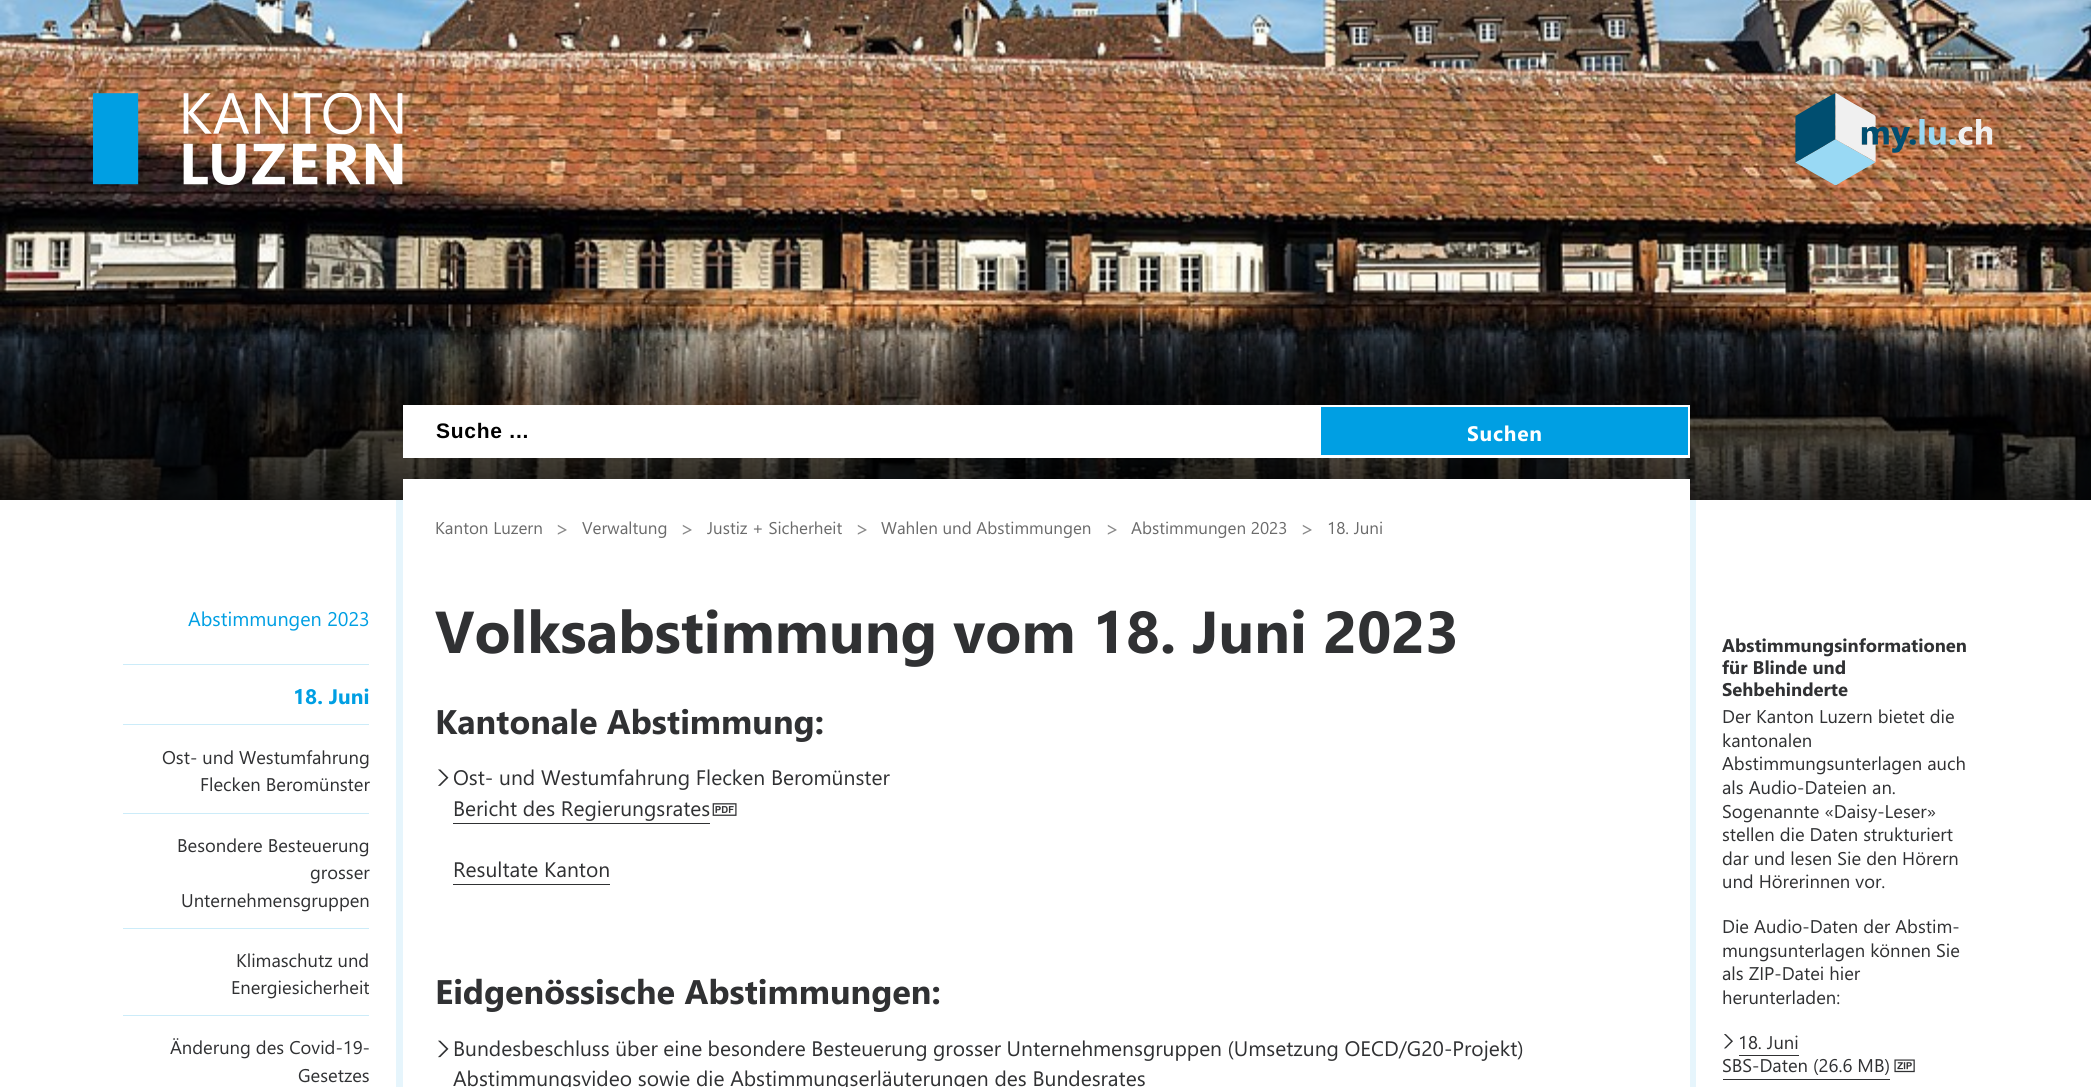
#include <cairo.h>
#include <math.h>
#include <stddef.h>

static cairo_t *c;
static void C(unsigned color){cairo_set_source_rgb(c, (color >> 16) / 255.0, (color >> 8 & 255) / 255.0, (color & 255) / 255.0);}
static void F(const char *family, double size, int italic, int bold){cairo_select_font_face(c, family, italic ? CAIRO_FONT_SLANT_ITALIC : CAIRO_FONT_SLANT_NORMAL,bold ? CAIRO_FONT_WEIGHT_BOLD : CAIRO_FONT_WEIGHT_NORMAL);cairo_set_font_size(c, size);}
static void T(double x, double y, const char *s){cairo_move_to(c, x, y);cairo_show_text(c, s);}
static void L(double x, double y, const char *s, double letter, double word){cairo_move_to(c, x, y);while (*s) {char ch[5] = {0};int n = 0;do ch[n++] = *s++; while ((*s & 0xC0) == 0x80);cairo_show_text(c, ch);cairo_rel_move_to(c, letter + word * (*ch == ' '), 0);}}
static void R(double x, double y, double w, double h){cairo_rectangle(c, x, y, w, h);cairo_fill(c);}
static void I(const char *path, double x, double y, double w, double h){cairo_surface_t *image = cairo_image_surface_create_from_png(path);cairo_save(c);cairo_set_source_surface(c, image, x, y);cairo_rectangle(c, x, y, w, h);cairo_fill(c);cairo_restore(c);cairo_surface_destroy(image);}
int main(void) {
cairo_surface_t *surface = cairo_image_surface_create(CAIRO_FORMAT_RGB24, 2091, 1087);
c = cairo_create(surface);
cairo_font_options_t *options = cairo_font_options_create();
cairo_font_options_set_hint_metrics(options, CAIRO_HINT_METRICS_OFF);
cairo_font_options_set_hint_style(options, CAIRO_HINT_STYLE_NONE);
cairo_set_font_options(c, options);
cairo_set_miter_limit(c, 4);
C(0xffffff);
cairo_paint(c);
I("1.png",0,0,2091,500);
I("2.png",93,93,310,92);
I("3.png",1795,93,198,92);
C(0xffffff);
R(403,405,1287,53);
F("Liberation Sans",21,0,1);
C(0x000000);
L(436,438,"Suche ...",.75,0);
C(0x009fe3);
R(1321,407,367,48);
F("Segoe UI",21,0,1);
C(0xffffff);
L(1467,441,"Suchen",.75,0);
C(0xccecf9);
R(123,664,246,1);
F("Segoe UI",19.75,0,0);
C(0x009fe3);
T(188,626,"Abstimmungen 2023");
C(0xccecf9);
R(123,724,246,1);
F("Segoe UI",21,0,1);
C(0x009fe3);
T(293,704,"18. Juni");
C(0xccecf9);
R(123,813,246,1);
F("Segoe UI",18.4,0,0);
C(0x303133);
T(162,764,"Ost- und Westumfahrung");
T(200,791,"Flecken Beromünster");
C(0xccecf9);
R(123,928,246,1);
C(0x303133);
T(177,852,"Besondere Besteuerung");
T(310,879,"grosser");
T(181,907,"Unternehmensgruppen");
C(0xccecf9);
R(123,1015,246,1);
C(0x303133);
T(236,967,"Klimaschutz und");
T(231,994,"Energiesicherheit");
T(170,1054,"Änderung des Covid-19-");
T(298,1082,"Gesetzes");
C(0xffffff);
R(403,479,1287,21);
C(0xe6f5fc);
R(396,500,7,587);
F("Segoe UI",17,0,0);
C(0x6b6b6b);
T(435,534,"Kanton Luzern");
F("Segoe UI",21,0,0);
C(0x898989);
T(555,536,">");
F("Segoe UI",17,0,0);
C(0x6b6b6b);
T(582,534,"Verwaltung");
F("Segoe UI",21,0,0);
C(0x898989);
T(680,536,">");
F("Segoe UI",17,0,0);
C(0x6b6b6b);
T(707,534,"Justiz + Sicherheit");
F("Segoe UI",21,0,0);
C(0x898989);
T(855,536,">");
F("Segoe UI",17,0,0);
C(0x6b6b6b);
T(881,534,"Wahlen und Abstimmungen");
F("Segoe UI",21,0,0);
C(0x898989);
T(1105,536,">");
F("Segoe UI",17,0,0);
C(0x6b6b6b);
T(1131,534,"Abstimmungen 2023");
F("Segoe UI",21,0,0);
C(0x898989);
T(1300,536,">");
F("Segoe UI",17,0,0);
C(0x6b6b6b);
T(1327,534,"18. Juni");
C(0xe6f5fc);
R(1690,500,6,587);
F("Segoe UI",59.1,0,1);
C(0x303133);
T(435,653,"Volksabstimmung vom 18. Juni 2023");
F("Segoe UI",34.1,0,1);
T(435,734,"Kantonale Abstimmung:");
I("4.png",438,769,11,17);
F("Segoe UI",21,0,0);
T(453,785,"Ost- und Westumfahrung Flecken Beromünster");
T(453,816,"Bericht des Regierungsrates");
R(453,823,257,1);
I("5.png",712,803,25,13);
T(453,877,"Resultate Kanton");
R(453,884,157,1);
F("Segoe UI",34.1,0,1);
T(435,1004,"Eidgenössische Abstimmungen:");
I("6.png",438,1040,11,18);
F("Segoe UI",21,0,0);
L(453,1056,"Bundesbeschluss über eine besondere Besteuerung grosser Unternehmensgruppen (Umsetzung OECD/G20-Projekt)",0,-.25);
T(453,1086,"Abstimmungsvideo sowie die Abstimmungserläuterungen des Bundesrates");
F("Segoe UI",18.4,0,1);
T(1722,652,"Abstimmungsinformationen");
T(1722,674,"für Blinde und");
T(1722,696,"Sehbehinderte");
F("Segoe UI",18.4,0,0);
T(1722,723,"Der Kanton Luzern bietet die");
T(1722,747,"kantonalen");
T(1722,770,"Abstimmungsunterlagen auch");
T(1722,794,"als Audio-Dateien an.");
T(1722,818,"Sogenannte «Daisy-Leser»");
T(1722,841,"stellen die Daten strukturiert");
T(1722,865,"dar und lesen Sie den Hörern");
T(1722,888,"und Hörerinnen vor.");
T(1722,933,"Die Audio-Daten der Abstim-");
T(1722,957,"mungsunterlagen können Sie");
T(1722,980,"als ZIP-Datei hier");
T(1722,1004,"herunterladen:");
I("7.png",1724,1034,9,15);
T(1738,1049,"18. Juni");
T(1722,1072,"SBS-Daten (26.6 MB)");
R(1739,1055,60,1);
R(1723,1079,167,1);
I("8.png",1894,1059,21,14);
cairo_surface_write_to_png(surface, "o.png");
cairo_font_options_destroy(options);
cairo_destroy(c);
cairo_surface_destroy(surface);
return 0;
}
